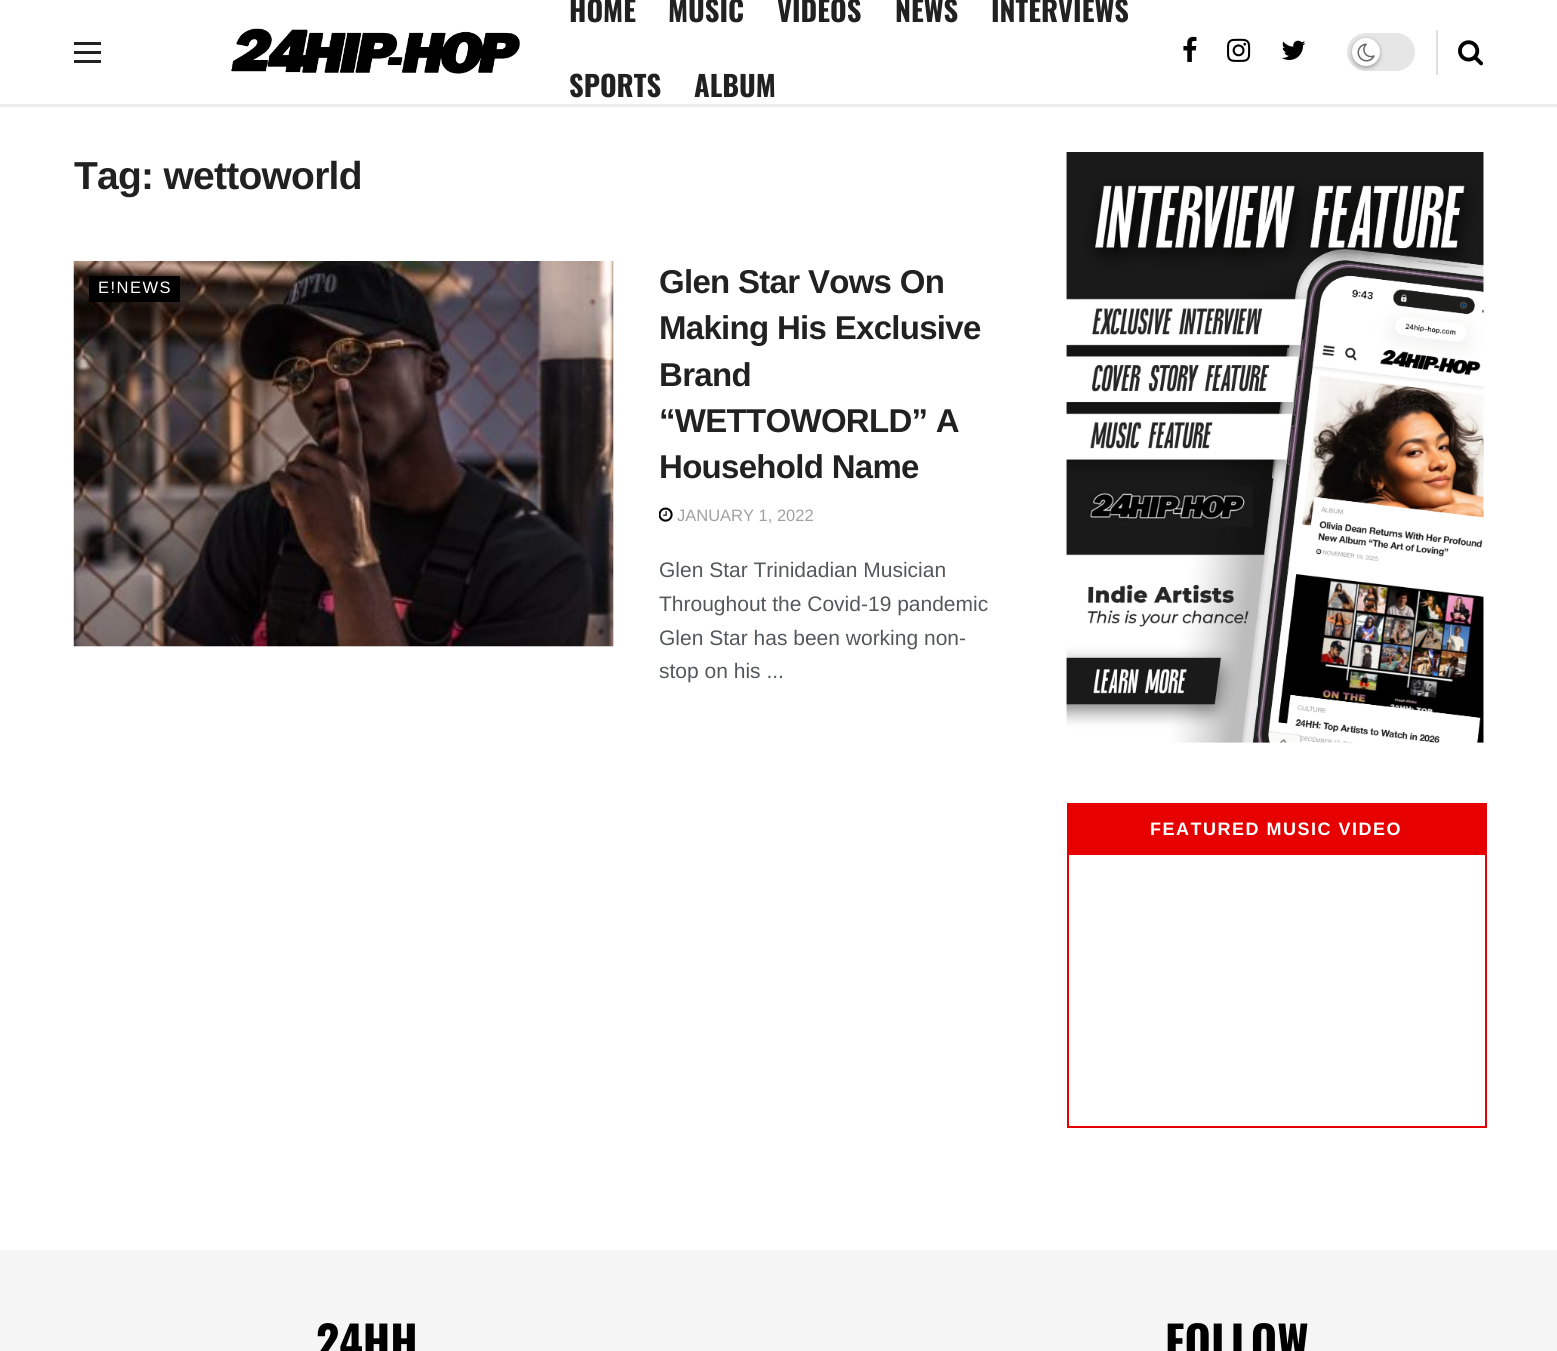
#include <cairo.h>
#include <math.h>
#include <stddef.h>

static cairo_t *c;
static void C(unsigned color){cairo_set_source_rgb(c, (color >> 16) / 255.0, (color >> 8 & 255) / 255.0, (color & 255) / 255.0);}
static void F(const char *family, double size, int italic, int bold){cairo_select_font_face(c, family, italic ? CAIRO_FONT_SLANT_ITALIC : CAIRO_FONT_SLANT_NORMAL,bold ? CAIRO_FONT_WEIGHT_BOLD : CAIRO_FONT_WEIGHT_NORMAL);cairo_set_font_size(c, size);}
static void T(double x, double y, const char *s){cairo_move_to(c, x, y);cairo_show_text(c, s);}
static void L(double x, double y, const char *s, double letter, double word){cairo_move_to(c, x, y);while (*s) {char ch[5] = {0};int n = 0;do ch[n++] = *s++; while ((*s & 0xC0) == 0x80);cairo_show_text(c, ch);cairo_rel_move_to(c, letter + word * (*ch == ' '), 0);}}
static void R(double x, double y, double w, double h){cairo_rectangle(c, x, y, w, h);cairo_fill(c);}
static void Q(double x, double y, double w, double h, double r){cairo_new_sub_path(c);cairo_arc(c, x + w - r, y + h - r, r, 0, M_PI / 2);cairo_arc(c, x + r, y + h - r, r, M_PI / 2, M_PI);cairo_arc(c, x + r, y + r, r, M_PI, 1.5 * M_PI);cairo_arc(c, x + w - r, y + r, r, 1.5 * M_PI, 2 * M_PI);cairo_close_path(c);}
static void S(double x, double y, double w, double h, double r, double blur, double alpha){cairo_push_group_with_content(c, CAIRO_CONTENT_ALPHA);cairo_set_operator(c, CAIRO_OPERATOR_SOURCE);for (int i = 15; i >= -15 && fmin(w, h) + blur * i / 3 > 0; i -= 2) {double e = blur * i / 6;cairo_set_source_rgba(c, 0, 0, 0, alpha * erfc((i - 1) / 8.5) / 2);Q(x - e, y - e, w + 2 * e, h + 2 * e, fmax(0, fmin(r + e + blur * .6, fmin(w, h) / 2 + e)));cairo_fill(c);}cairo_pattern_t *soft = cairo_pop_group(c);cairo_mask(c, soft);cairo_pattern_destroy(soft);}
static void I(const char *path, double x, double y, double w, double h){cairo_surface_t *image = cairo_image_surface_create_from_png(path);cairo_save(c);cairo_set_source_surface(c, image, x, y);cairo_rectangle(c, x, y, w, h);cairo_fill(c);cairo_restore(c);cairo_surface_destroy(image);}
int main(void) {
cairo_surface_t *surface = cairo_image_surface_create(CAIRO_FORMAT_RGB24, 1557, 1351);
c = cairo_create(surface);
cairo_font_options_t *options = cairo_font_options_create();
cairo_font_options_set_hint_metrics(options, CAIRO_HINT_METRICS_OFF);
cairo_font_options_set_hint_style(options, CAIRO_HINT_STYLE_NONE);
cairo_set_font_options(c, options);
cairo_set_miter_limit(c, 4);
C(0xffffff);
cairo_paint(c);
C(0xededed);
R(0,104,1557,3);
C(0x212121);
R(74,42,27,3);
R(74,51,27,3);
R(74,60,27,3);
I("1.png",231,28,289,46);
F("Oswald",28.5,0,1);
T(569,22,"HOME");
T(668,22,"MUSIC");
T(777,22,"VIDEOS");
T(895,22,"NEWS");
T(991,22,"INTERVIEWS");
T(569,97,"SPORTS");
T(694,97,"ALBUM");
I("2.png",1183,36,14,26);
I("3.png",1227,38,24,24);
I("4.png",1281,40,25,20);
C(0xe6e6e6);
Q(1347,33,68,38,19);
cairo_fill(c);
C(0x000000);
S(1352,39,28,29,14,2,.3);
C(0xffffff);
cairo_arc(c,1366,52,14,0,2 * M_PI);
cairo_fill(c);
I("5.png",1357,43,18,19);
C(0xe0e0e0);
R(1436,30,2,45);
I("6.png",1458,40,26,26);
F("Liberation Sans",39,0,1);
C(0x212121);
L(74,189,"Tag: wettoworld",-.75,0);
C(0xf7f7f7);
R(74,261,540,386);
I("7.png",73,261,541,386);
C(0x000000);
R(89,276,91,26);
F("Liberation Sans",16.5,0,0);
C(0xffffff);
L(98,293,"E!NEWS",1.5,0);
F("Liberation Sans",33,0,1);
C(0x212121);
L(659,293,"Glen Star Vows On",-.7,0);
L(659,339,"Making His Exclusive",-.7,0);
L(659,386,"Brand",-.7,0);
L(659,432,"“WETTOWORLD” A",-.7,0);
L(659,478,"Household Name",-.7,0);
I("8.png",659,507,14,15);
F("Liberation Sans",16.5,0,0);
C(0xa0a0a0);
T(677,521,"JANUARY 1, 2022");
F("Liberation Sans",21,0,0);
C(0x53585c);
T(659,577,"Glen Star Trinidadian Musician");
T(659,611,"Throughout the Covid-19 pandemic");
T(659,645,"Glen Star has been working non-");
T(659,678,"stop on his ...");
I("9.png",1066,152,418,591);
cairo_rectangle(c,1068,804,418,323);
C(0xe60000);
cairo_stroke(c);
R(1069,805,416,50);
F("Liberation Sans",18,0,1);
C(0xffffff);
L(1150,835,"FEATURED MUSIC VIDEO",1.5,0);
C(0xf5f5f5);
R(0,1250,1557,101);
F("Oswald",45,0,1);
C(0x000000);
T(316,1360,"24HH");
T(1165,1360,"FOLLOW");
cairo_surface_write_to_png(surface, "o.png");
cairo_font_options_destroy(options);
cairo_destroy(c);
cairo_surface_destroy(surface);
return 0;
}
